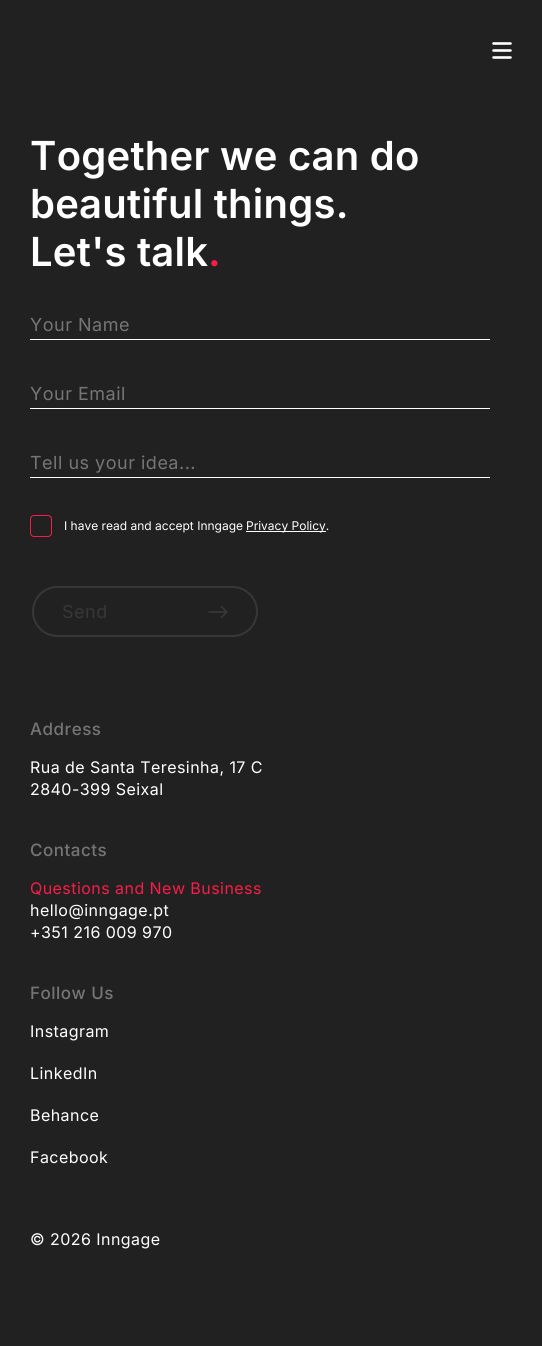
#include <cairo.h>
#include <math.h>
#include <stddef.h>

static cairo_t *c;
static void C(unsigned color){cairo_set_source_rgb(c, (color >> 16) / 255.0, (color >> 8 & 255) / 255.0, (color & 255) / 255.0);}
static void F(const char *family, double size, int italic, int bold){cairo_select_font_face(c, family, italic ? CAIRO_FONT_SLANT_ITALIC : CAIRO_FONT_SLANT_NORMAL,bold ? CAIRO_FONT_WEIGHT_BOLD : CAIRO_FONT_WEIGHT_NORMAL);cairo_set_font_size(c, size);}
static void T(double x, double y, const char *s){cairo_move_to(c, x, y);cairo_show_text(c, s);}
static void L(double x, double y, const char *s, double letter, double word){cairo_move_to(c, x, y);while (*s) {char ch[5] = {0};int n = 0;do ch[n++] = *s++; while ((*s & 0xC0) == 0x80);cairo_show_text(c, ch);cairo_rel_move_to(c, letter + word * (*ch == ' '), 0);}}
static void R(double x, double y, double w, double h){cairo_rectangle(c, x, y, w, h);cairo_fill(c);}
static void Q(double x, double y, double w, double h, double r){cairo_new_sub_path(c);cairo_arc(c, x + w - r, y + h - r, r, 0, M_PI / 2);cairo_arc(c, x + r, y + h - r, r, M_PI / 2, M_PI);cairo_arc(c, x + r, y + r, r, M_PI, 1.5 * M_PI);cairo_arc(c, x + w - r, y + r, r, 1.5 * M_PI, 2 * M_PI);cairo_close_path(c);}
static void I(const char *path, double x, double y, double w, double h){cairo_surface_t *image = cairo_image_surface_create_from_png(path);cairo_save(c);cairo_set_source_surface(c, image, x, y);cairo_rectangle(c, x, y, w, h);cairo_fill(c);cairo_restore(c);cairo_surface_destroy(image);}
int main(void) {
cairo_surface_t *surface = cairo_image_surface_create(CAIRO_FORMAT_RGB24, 542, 1346);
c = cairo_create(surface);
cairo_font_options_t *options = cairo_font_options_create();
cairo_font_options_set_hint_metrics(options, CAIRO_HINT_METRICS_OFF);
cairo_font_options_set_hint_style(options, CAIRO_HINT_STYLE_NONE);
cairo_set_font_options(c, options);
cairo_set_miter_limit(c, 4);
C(0x212121);
cairo_paint(c);
cairo_new_path(c);
cairo_move_to(c,493.5,50.5);
cairo_line_to(c,510.5,50.5);
cairo_move_to(c,493.5,43.5);
cairo_line_to(c,510.5,43.5);
cairo_move_to(c,493.5,57.5);
cairo_line_to(c,510.5,57.5);
C(0xffffff);
cairo_set_line_width(c,2.6);
cairo_set_line_cap(c,CAIRO_LINE_CAP_ROUND);
cairo_set_line_join(c,CAIRO_LINE_JOIN_ROUND);
cairo_stroke(c);
F("Inter SemiBold",40,0,0);
L(30,170,"Together we can do",.25,0);
L(30,218,"beautiful things.",.25,0);
L(30,266,"Let's talk",.25,0);
C(0xf91c46);
L(208,266,".",.25,0);
C(0xffffff);
R(30,339,460,1);
F("Inter",18,0,0);
C(0x757575);
L(30,331,"Your Name",.5,0);
C(0xffffff);
R(30,408,460,1);
C(0x757575);
L(30,400,"Your Email",.5,0);
C(0xffffff);
R(30,477,460,1);
C(0x757575);
L(30,469,"Tell us your idea...",.5,0);
Q(30.5,515.5,21,21,3.5);
C(0xf91c46);
cairo_set_line_width(c,1);
cairo_set_line_cap(c,CAIRO_LINE_CAP_BUTT);
cairo_set_line_join(c,CAIRO_LINE_JOIN_MITER);
cairo_stroke(c);
F("Inter",12,0,0);
C(0xffffff);
T(64,530,"I have read and accept Inngage");
R(246,531,80,1);
T(246,530,"Privacy Policy.");
Q(33,587,224,49,24.5);
C(0x373737);
cairo_set_line_width(c,2);
cairo_stroke(c);
F("Inter",18,0,0);
L(62,618,"Send",.5,0);
I("1.png",208,606,20,12);
F("Inter Medium",17,0,0);
C(0x757575);
L(30,735,"Address",.5,0);
F("Inter",16,0,0);
C(0xffffff);
L(30,773,"Rua de Santa Teresinha, 17 C",.45,0);
L(30,795,"2840-399 Seixal",.45,0);
F("Inter Medium",17,0,0);
C(0x757575);
L(30,856,"Contacts",.5,0);
F("Inter",16,0,0);
C(0xf91c46);
L(30,894,"Questions and New Business",.45,0);
C(0xffffff);
L(30,916,"hello@inngage.pt",.45,0);
L(30,938,"+351 216 009 970",.45,0);
F("Inter Medium",17,0,0);
C(0x757575);
L(30,999,"Follow Us",.5,0);
F("Inter",16,0,0);
C(0xffffff);
L(30,1037,"Instagram",.45,0);
L(30,1079,"LinkedIn",.45,0);
L(30,1121,"Behance",.45,0);
L(30,1163,"Facebook",.45,0);
L(30,1245,"© 2026 Inngage",.45,0);
cairo_surface_write_to_png(surface, "o.png");
cairo_font_options_destroy(options);
cairo_destroy(c);
cairo_surface_destroy(surface);
return 0;
}
